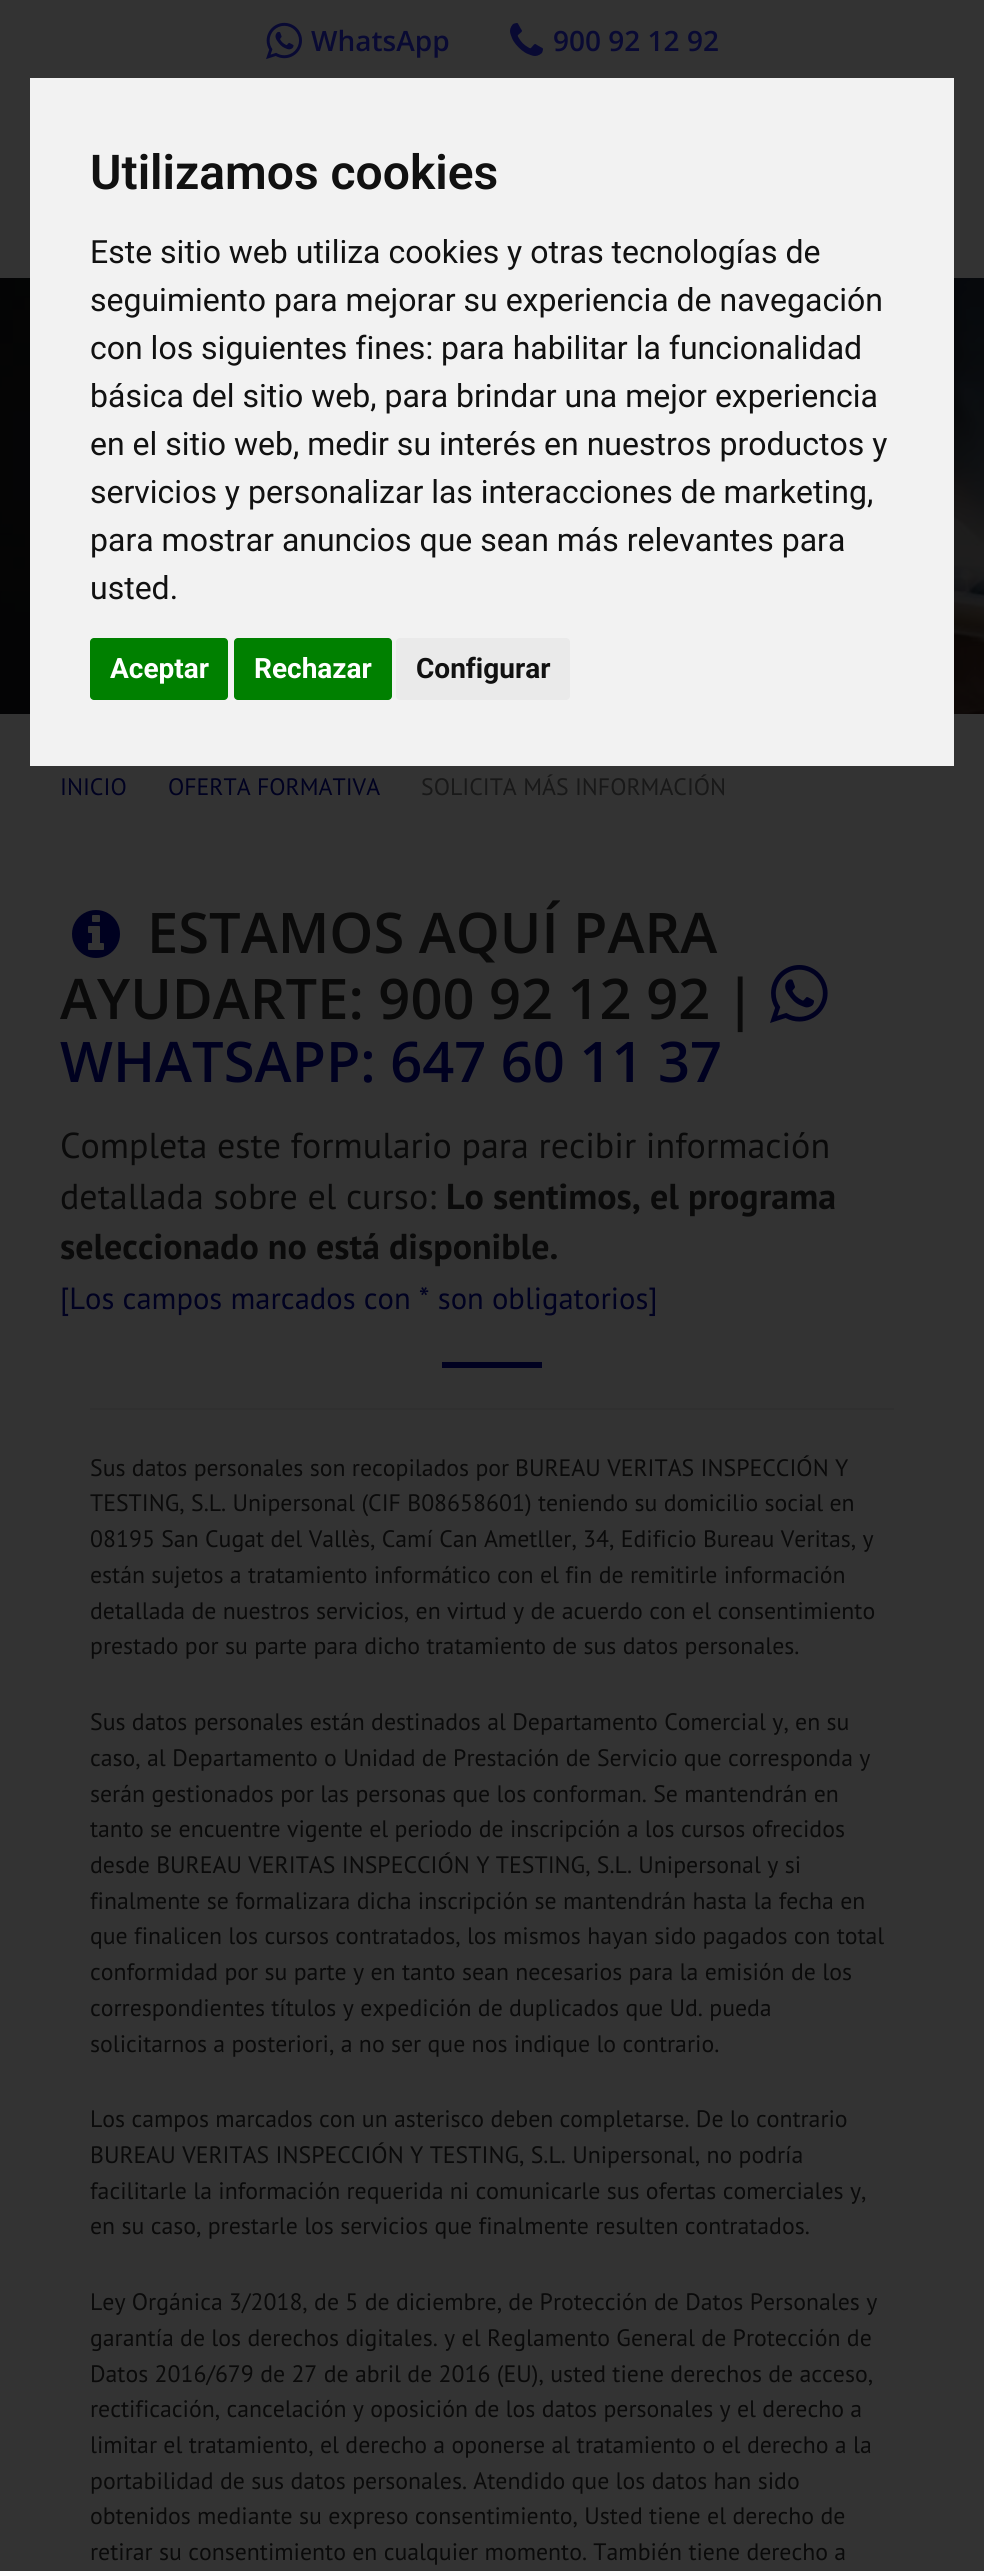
#include <cairo.h>
#include <math.h>
#include <stddef.h>

static cairo_t *c;
static void C(unsigned color){cairo_set_source_rgb(c, (color >> 16) / 255.0, (color >> 8 & 255) / 255.0, (color & 255) / 255.0);}
static void F(const char *family, double size, int italic, int bold){cairo_select_font_face(c, family, italic ? CAIRO_FONT_SLANT_ITALIC : CAIRO_FONT_SLANT_NORMAL,bold ? CAIRO_FONT_WEIGHT_BOLD : CAIRO_FONT_WEIGHT_NORMAL);cairo_set_font_size(c, size);}
static void T(double x, double y, const char *s){cairo_move_to(c, x, y);cairo_show_text(c, s);}
static void R(double x, double y, double w, double h){cairo_rectangle(c, x, y, w, h);cairo_fill(c);}
static void Q(double x, double y, double w, double h, double r){cairo_new_sub_path(c);cairo_arc(c, x + w - r, y + h - r, r, 0, M_PI / 2);cairo_arc(c, x + r, y + h - r, r, M_PI / 2, M_PI);cairo_arc(c, x + r, y + r, r, M_PI, 1.5 * M_PI);cairo_arc(c, x + w - r, y + r, r, 1.5 * M_PI, 2 * M_PI);cairo_close_path(c);}
static void I(const char *path, double x, double y, double w, double h){cairo_surface_t *image = cairo_image_surface_create_from_png(path);cairo_save(c);cairo_set_source_surface(c, image, x, y);cairo_rectangle(c, x, y, w, h);cairo_fill(c);cairo_restore(c);cairo_surface_destroy(image);}
int main(void) {
cairo_surface_t *surface = cairo_image_surface_create(CAIRO_FORMAT_RGB24, 984, 2571);
c = cairo_create(surface);
cairo_font_options_t *options = cairo_font_options_create();
cairo_font_options_set_hint_metrics(options, CAIRO_HINT_METRICS_OFF);
cairo_font_options_set_hint_style(options, CAIRO_HINT_STYLE_NONE);
cairo_set_font_options(c, options);
cairo_set_miter_limit(c, 4);
C(0x333333);
cairo_paint(c);
I("1.png",266,22,36,38);
F("Open Sans SemiBold",28,0,0);
C(0x090a33);
T(311,51,"WhatsApp");
I("2.png",510,23,33,33);
T(553,51,"900 92 12 92");
I("3.png",0,278,984,436);
F("PT Sans",23.8,0,0);
C(0x000120);
T(60,795,"INICIO");
T(168,795,"OFERTA FORMATIVA");
C(0x181818);
T(421,795,"SOLICITA MÁS INFORMACIÓN");
F("Open Sans SemiBold",56,0,0);
C(0x0a0a0a);
T(147,953,"ESTAMOS AQUÍ PARA");
T(60,1019,"AYUDARTE: 900 92 12 92 |");
I("4.png",770,965,58,58);
C(0x000120);
T(60,1082,"WHATSAPP: 647 60 11 37");
I("5.png",72,910,48,48);
F("PT Sans",36,0,0);
C(0x0a0a0a);
T(60,1158,"Completa este formulario para recibir información");
T(60,1209,"detallada sobre el curso:");
F("PT Sans",36,0,1);
T(446,1209,"Lo sentimos, el programa");
T(60,1259,"seleccionado no está disponible.");
F("PT Sans",30.6,0,0);
C(0x000120);
T(60,1309,"[Los campos marcados con * son obligatorios]");
R(442,1362,100,6);
C(0x303030);
R(90,1408,804,2);
F("PT Sans",23.8,0,0);
C(0x0a0a0a);
T(90,1476,"Sus datos personales son recopilados por");
T(515,1476,"BUREAU VERITAS INSPECCIÓN Y");
T(90,1511,"TESTING, S.L. Unipersonal (CIF B08658601) teniendo su domicilio social en");
T(90,1547,"08195 San Cugat del Vallès, Camí Can Ametller, 34, Edificio Bureau Veritas, y");
T(90,1583,"están sujetos a tratamiento informático con el fin de remitirle información");
T(90,1619,"detallada de nuestros servicios, en virtud y de acuerdo con el consentimiento");
T(90,1654,"prestado por su parte para dicho tratamiento de sus datos personales.");
T(90,1730,"Sus datos personales están destinados al Departamento Comercial y, en su");
T(90,1766,"caso, al Departamento o Unidad de Prestación de Servicio que corresponda y");
T(90,1802,"serán gestionados por las personas que los conforman. Se mantendrán en");
T(90,1837,"tanto se encuentre vigente el periodo de inscripción a los cursos ofrecidos");
T(90,1873,"desde BUREAU VERITAS INSPECCIÓN Y TESTING, S.L. Unipersonal y si");
T(90,1909,"finalmente se formalizara dicha inscripción se mantendrán hasta la fecha en");
T(90,1944,"que finalicen los cursos contratados, los mismos hayan sido pagados con total");
T(90,1980,"conformidad por su parte y en tanto sean necesarios para la emisión de los");
T(90,2016,"correspondientes títulos y expedición de duplicados que Ud. pueda");
T(90,2052,"solicitarnos a posteriori, a no ser que nos indique lo contrario.");
T(90,2127,"Los campos marcados con un asterisco deben completarse. De lo contrario");
T(90,2163,"BUREAU VERITAS INSPECCIÓN Y TESTING, S.L. Unipersonal, no podría");
T(90,2199,"facilitarle la información requerida ni comunicarle sus ofertas comerciales y,");
T(90,2234,"en su caso, prestarle los servicios que finalmente resulten contratados.");
T(90,2310,"Ley Orgánica 3/2018, de 5 de diciembre, de Protección de Datos Personales y");
T(90,2346,"garantía de los derechos digitales. y el Reglamento General de Protección de");
T(90,2382,"Datos 2016/679 de 27 de abril de 2016 (EU), usted tiene derechos de acceso,");
T(90,2417,"rectificación, cancelación y oposición de los datos personales y el derecho a");
T(90,2453,"limitar el tratamiento, el derecho a oponerse al tratamiento o el derecho a la");
T(90,2489,"portabilidad de sus datos personales. Atendido que los datos han sido");
T(90,2524,"obtenidos mediante su expreso consentimiento, Usted tiene el derecho de");
T(90,2560,"retirar su consentimiento en cualquier momento. También tiene derecho a");
C(0xf2f2f2);
R(30,78,924,688);
F("Roboto SemiBold",48,0,0);
C(0x111111);
T(90,189,"Utilizamos cookies");
F("Roboto",32,0,0);
T(90,263,"Este sitio web utiliza cookies y otras tecnologías de");
T(90,311,"seguimiento para mejorar su experiencia de navegación");
T(90,359,"con los siguientes fines: para habilitar la funcionalidad");
T(90,407,"básica del sitio web, para brindar una mejor experiencia");
T(90,455,"en el sitio web, medir su interés en nuestros productos y");
T(90,503,"servicios y personalizar las interacciones de marketing,");
T(90,551,"para mostrar anuncios que sean más relevantes para");
T(90,599,"usted.");
C(0x008000);
Q(90,638,138,62,4);
cairo_fill(c);
F("Roboto",28,0,1);
C(0xffffff);
T(110,678,"Aceptar");
C(0x008000);
Q(234,638,158,62,4);
cairo_fill(c);
C(0xffffff);
T(254,678,"Rechazar");
C(0xeaeaea);
Q(396,638,174,62,4);
cairo_fill(c);
C(0x111111);
T(416,678,"Configurar");
cairo_surface_write_to_png(surface, "o.png");
cairo_font_options_destroy(options);
cairo_destroy(c);
cairo_surface_destroy(surface);
return 0;
}
